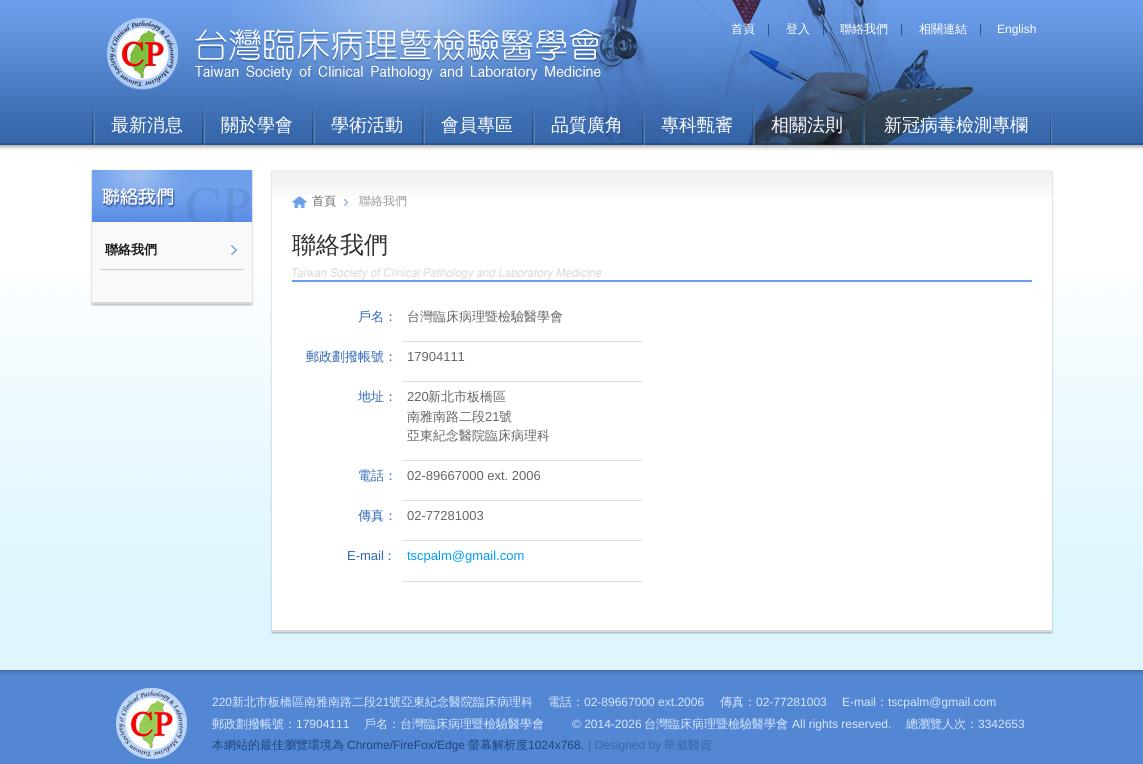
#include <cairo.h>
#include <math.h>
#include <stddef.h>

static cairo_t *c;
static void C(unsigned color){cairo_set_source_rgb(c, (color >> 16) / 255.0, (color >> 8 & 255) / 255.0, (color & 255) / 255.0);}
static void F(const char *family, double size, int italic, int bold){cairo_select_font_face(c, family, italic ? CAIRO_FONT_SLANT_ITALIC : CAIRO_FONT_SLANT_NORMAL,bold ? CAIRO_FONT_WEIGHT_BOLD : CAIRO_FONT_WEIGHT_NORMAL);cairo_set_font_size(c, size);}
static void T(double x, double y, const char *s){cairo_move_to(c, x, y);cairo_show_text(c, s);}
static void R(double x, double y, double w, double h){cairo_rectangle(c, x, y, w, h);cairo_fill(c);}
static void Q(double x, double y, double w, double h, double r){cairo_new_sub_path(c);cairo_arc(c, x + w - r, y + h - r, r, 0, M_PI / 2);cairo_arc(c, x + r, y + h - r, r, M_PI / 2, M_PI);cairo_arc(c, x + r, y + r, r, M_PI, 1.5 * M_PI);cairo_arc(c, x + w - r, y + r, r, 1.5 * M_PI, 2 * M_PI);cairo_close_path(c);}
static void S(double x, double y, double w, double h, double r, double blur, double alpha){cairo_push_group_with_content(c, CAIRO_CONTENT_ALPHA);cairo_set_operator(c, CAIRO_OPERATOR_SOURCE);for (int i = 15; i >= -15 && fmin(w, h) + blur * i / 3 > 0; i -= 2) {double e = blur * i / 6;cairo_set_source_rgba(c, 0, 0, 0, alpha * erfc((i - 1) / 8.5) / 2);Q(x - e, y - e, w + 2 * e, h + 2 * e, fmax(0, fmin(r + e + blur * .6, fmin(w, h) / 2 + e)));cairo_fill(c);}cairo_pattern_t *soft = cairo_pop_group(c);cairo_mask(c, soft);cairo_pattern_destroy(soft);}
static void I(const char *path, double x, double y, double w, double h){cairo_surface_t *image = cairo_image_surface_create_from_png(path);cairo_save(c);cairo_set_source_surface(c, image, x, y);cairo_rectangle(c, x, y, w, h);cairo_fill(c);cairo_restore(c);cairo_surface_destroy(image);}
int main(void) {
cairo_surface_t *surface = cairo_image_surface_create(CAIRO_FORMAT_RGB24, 1143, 764);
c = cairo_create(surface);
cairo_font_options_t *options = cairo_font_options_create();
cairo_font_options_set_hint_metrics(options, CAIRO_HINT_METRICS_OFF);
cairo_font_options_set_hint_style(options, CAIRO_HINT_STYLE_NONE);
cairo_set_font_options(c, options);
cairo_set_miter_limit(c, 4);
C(0x5387d4);
cairo_paint(c);
I("1.png",0,0,1143,160);
I("2.png",232,0,748,145);
I("3.png",107,18,494,72);
F("WenQuanYi Zen Hei Medium",12,0,0);
C(0xffffff);
T(731,33,"首頁");
F("Liberation Sans",12,0,0);
C(0x1453a2);
T(767,33,"|");
F("WenQuanYi Zen Hei Medium",12,0,0);
C(0xffffff);
T(786,33,"登入");
F("Liberation Sans",12,0,0);
C(0x1453a2);
T(822,33,"|");
F("WenQuanYi Zen Hei Medium",12,0,0);
C(0xffffff);
T(840,33,"聯絡我們");
F("Liberation Sans",12,0,0);
C(0x1453a2);
T(900,33,"|");
F("WenQuanYi Zen Hei Medium",12,0,0);
C(0xffffff);
T(919,33,"相關連結");
F("Liberation Sans",12,0,0);
C(0x1453a2);
T(979,33,"|");
C(0xffffff);
T(997,33,"English");
I("4.png",1050,105,2,40);
I("5.png",92,105,3,40);
F("WenQuanYi Zen Hei Medium",18,0,0);
T(111,131,"最新消息");
I("5.png",202,105,3,40);
T(221,131,"關於學會");
I("6.png",312,105,3,40);
T(331,131,"學術活動");
I("7.png",422,105,3,40);
T(441,131,"會員專區");
I("8.png",532,105,3,40);
T(551,131,"品質廣角");
I("9.png",642,105,3,40);
T(661,131,"專科甄審");
I("10.png",752,105,3,40);
T(771,131,"相關法則");
I("11.png",862,107,3,38);
T(884,131,"新冠病毒檢測專欄");
R(0,160,1143,117);
I("12.png",0,277,1143,393);
C(0x000000);
S(92,171,160,134,0,1,.3);
C(0xf9f9f9);
R(92,222,160,80);
C(0xd8d8d8);
R(92,302,160,2);
I("13.png",92,170,160,52);
C(0xcccccc);
R(100,269,144,1);
I("14.png",231,245,6,10);
F("WenQuanYi Zen Hei",13,0,1);
C(0x111111);
T(105,254,"聯絡我們");
C(0x000000);
S(272,171,780,462,0,1,.3);
C(0xffffff);
R(272,196,780,434);
I("15.png",272,170,780,26);
C(0xd8d8d8);
R(272,630,780,2);
I("16.png",292,268,310,12);
C(0x6b9eea);
R(292,280,740,2);
I("17.png",292,196,15,12);
F("WenQuanYi Zen Hei Medium",12,0,0);
C(0x666666);
T(312,205,"首頁");
I("18.png",344,199,4,7);
C(0x999999);
T(359,205,"聯絡我們");
F("WenQuanYi Zen Hei Medium",24,0,0);
C(0x333333);
T(292,253,"聯絡我們");
F("WenQuanYi Zen Hei Medium",13,0,0);
C(0x2f67b9);
T(358,321,"戶名：");
C(0xdddddd);
R(402,341,240,1);
C(0x666666);
T(407,321,"台灣臨床病理暨檢驗醫學會");
C(0x2f67b9);
T(306,361,"郵政劃撥帳號：");
C(0xdddddd);
R(402,381,240,1);
F("Liberation Sans",13,0,0);
C(0x666666);
T(407,361,"17904111");
F("WenQuanYi Zen Hei Medium",13,0,0);
C(0x2f67b9);
T(358,401,"地址：");
C(0xdddddd);
R(402,460,240,1);
F("Liberation Sans",13,0,0);
C(0x666666);
T(407,401,"220");
F("WenQuanYi Zen Hei Medium",13,0,0);
T(428,401,"新北市板橋區");
T(407,421,"南雅南路二段");
F("Liberation Sans",13,0,0);
T(485,421,"21");
F("WenQuanYi Zen Hei Medium",13,0,0);
T(499,421,"號");
T(407,440,"亞東紀念醫院臨床病理科");
C(0x2f67b9);
T(358,480,"電話：");
C(0xdddddd);
R(402,500,240,1);
F("Liberation Sans",13,0,0);
C(0x666666);
T(407,480,"02-89667000 ext. 2006");
F("WenQuanYi Zen Hei Medium",13,0,0);
C(0x2f67b9);
T(358,520,"傳真：");
C(0xdddddd);
R(402,540,240,1);
F("Liberation Sans",13,0,0);
C(0x666666);
T(407,520,"02-77281003");
C(0x2f67b9);
T(347,560,"E-mail");
F("WenQuanYi Zen Hei Medium",13,0,0);
T(383,560,"：");
C(0xdddddd);
R(402,581,240,1);
F("Liberation Sans",13,0,0);
C(0x009cff);
T(407,560,"tscpalm@gmail.com");
I("19.png",0,670,1143,5);
I("20.png",116,688,71,71);
F("Liberation Sans",12,0,0);
C(0xd6e6fe);
T(212,706,"220");
F("WenQuanYi Zen Hei Medium",12,0,0);
T(232,706,"新北市板橋區南雅南路二段");
F("Liberation Sans",12,0,0);
T(376,706,"21");
F("WenQuanYi Zen Hei Medium",12,0,0);
T(389,706,"號亞東紀念醫院臨床病理科");
T(548,706,"電話：");
F("Liberation Sans",12,0,0);
T(584,706,"02-89667000 ext.2006");
F("WenQuanYi Zen Hei Medium",12,0,0);
T(720,706,"傳真：");
F("Liberation Sans",12,0,0);
T(756,706,"02-77281003");
T(842,706,"E-mail");
F("WenQuanYi Zen Hei Medium",12,0,0);
T(876,706,"：");
F("Liberation Sans",12,0,0);
T(888,706,"tscpalm@gmail.com");
F("WenQuanYi Zen Hei Medium",12,0,0);
T(212,728,"郵政劃撥帳號：");
F("Liberation Sans",12,0,0);
T(296,728,"17904111");
F("WenQuanYi Zen Hei Medium",12,0,0);
T(364,728,"戶名：台灣臨床病理暨檢驗醫學會");
F("Liberation Sans",12,0,0);
T(572,728,"© 2014-2026");
F("WenQuanYi Zen Hei Medium",12,0,0);
T(644,728,"台灣臨床病理暨檢驗醫學會");
F("Liberation Sans",12,0,0);
T(792,728,"All rights reserved.");
F("WenQuanYi Zen Hei Medium",12,0,0);
T(906,728,"總瀏覽人次：");
F("Liberation Sans",12,0,0);
T(978,728,"3342653");
F("WenQuanYi Zen Hei Medium",12,0,0);
C(0x1b4481);
T(212,749,"本網站的最佳瀏覽環境為");
F("Liberation Sans",12,0,0);
T(347,749,"Chrome/FireFox/Edge");
F("WenQuanYi Zen Hei Medium",12,0,0);
T(468,749,"螢幕解析度");
F("Liberation Sans",12,0,0);
T(528,749,"1024x768.");
C(0x3766ab);
T(588,749,"| Designed by");
F("WenQuanYi Zen Hei Medium",12,0,0);
T(664,749,"華崴醫資");
cairo_surface_write_to_png(surface, "o.png");
cairo_font_options_destroy(options);
cairo_destroy(c);
cairo_surface_destroy(surface);
return 0;
}
